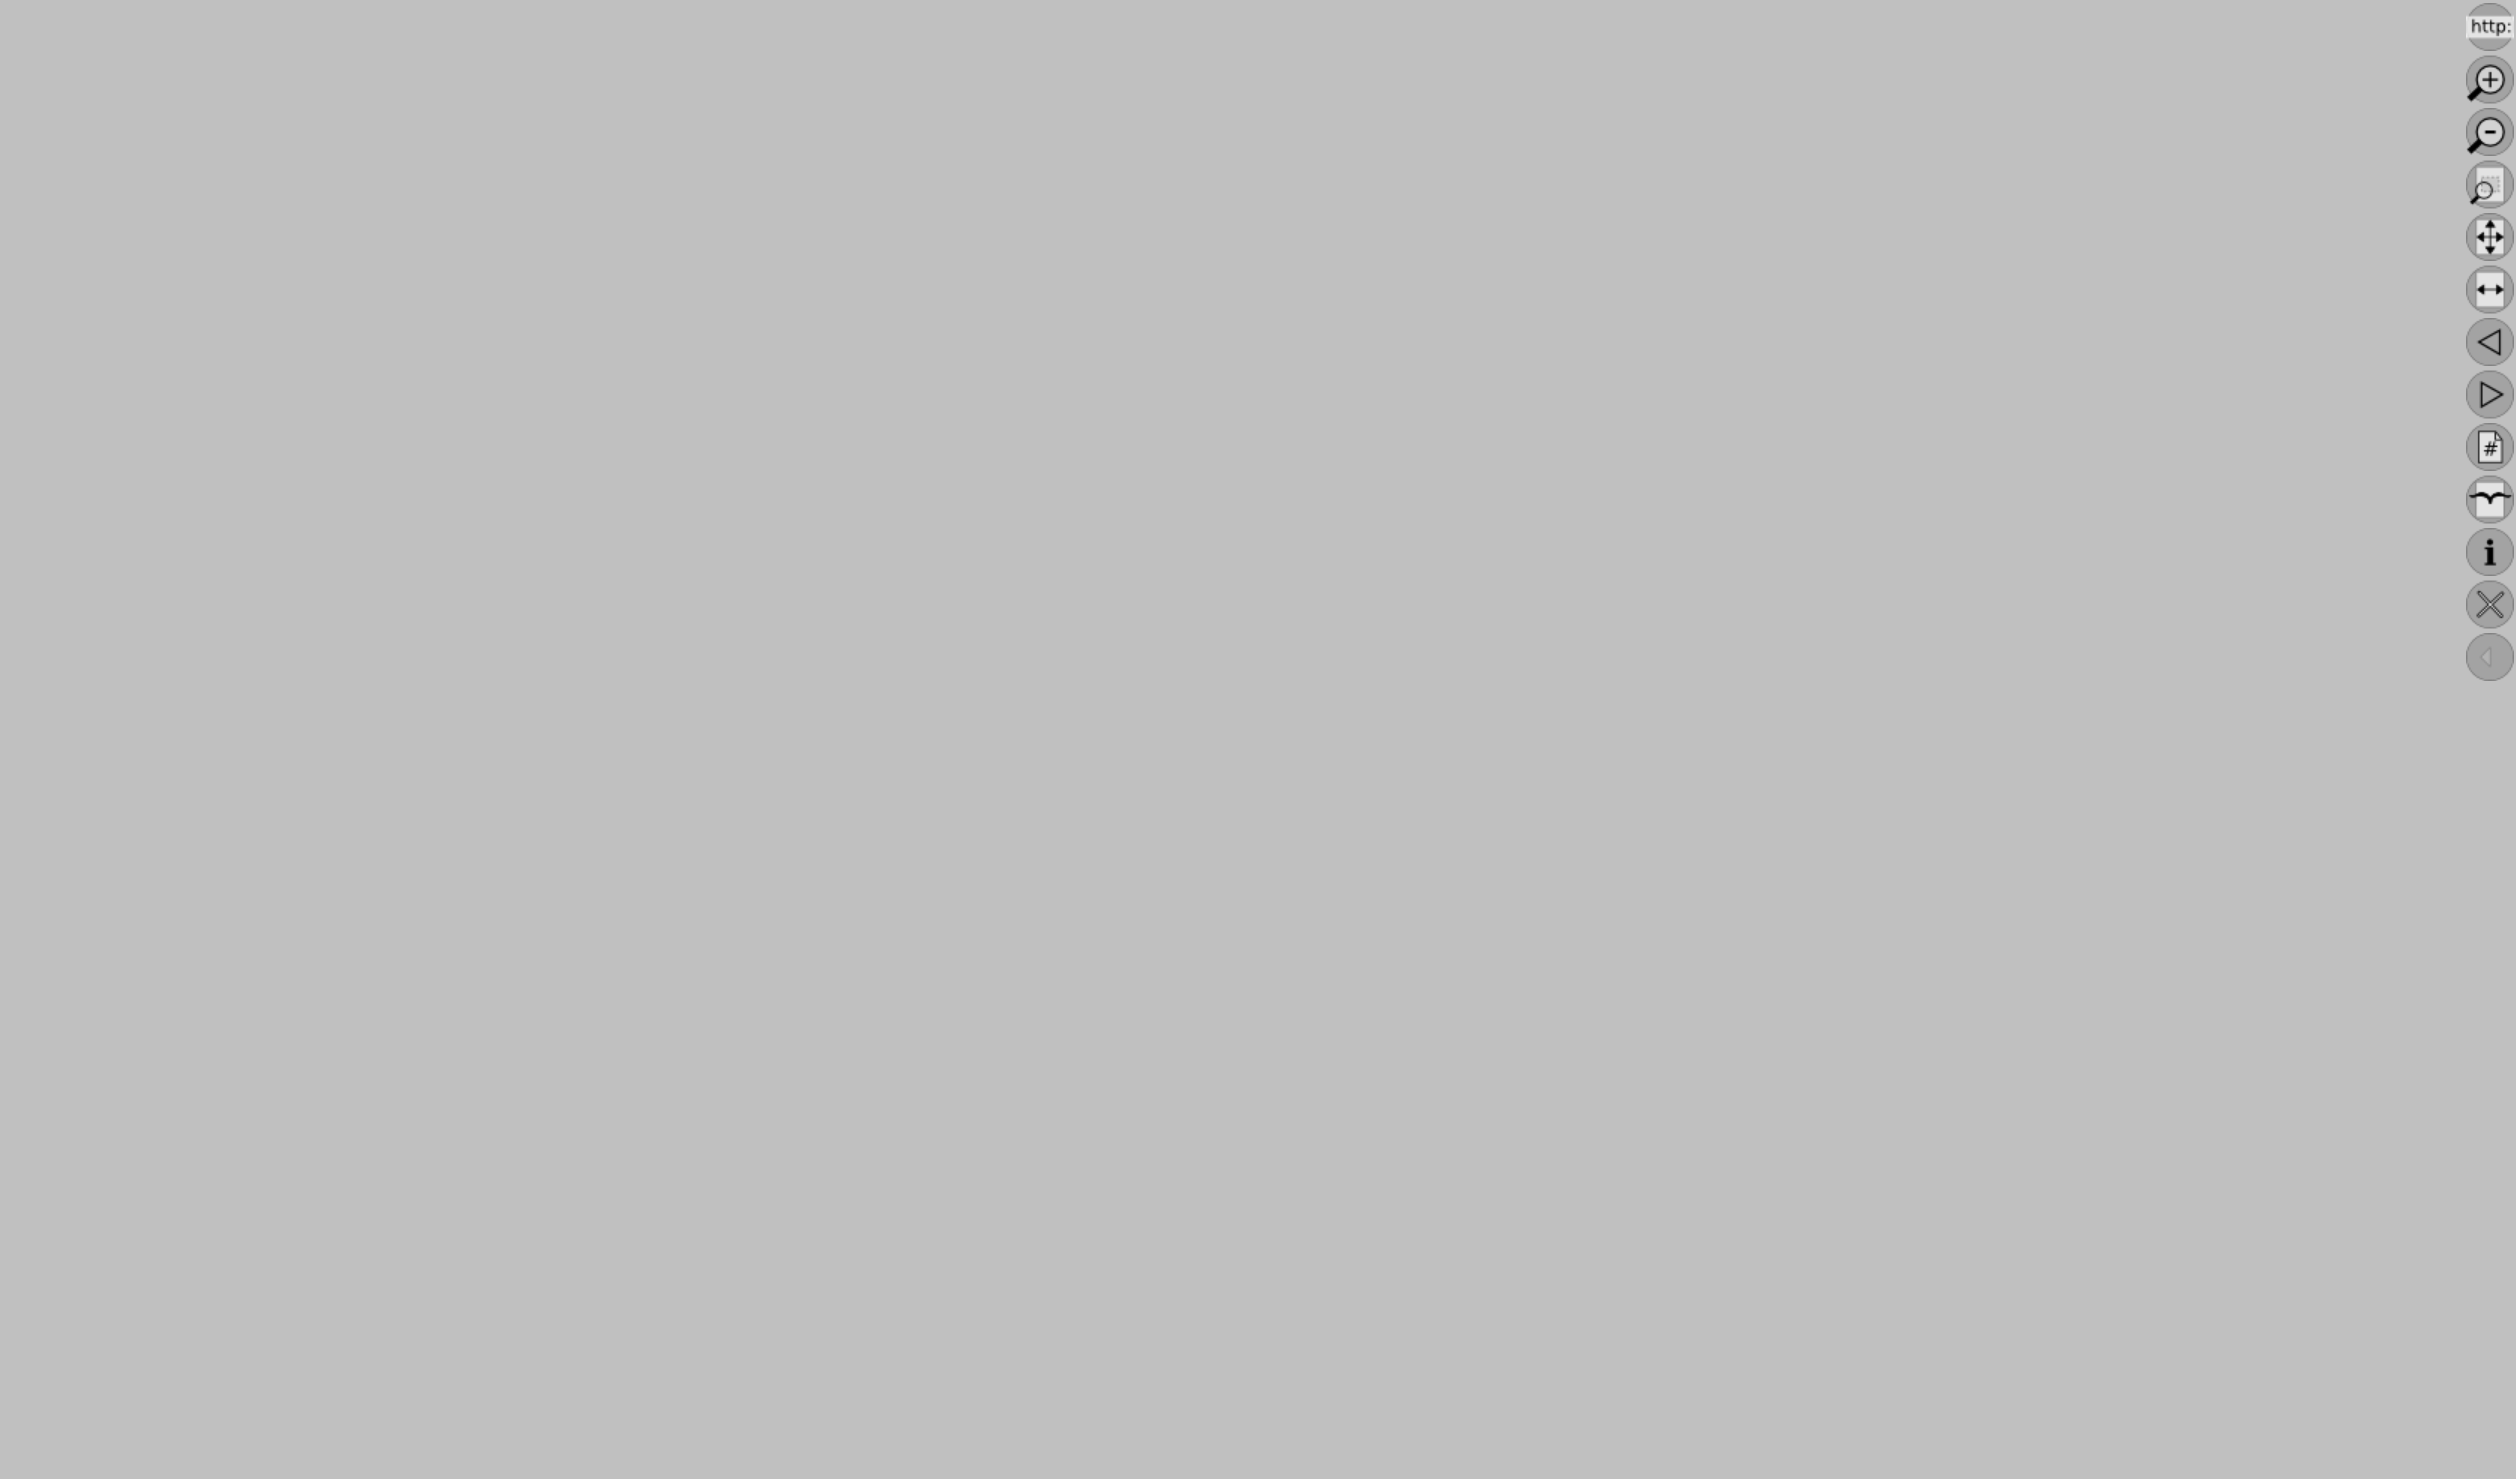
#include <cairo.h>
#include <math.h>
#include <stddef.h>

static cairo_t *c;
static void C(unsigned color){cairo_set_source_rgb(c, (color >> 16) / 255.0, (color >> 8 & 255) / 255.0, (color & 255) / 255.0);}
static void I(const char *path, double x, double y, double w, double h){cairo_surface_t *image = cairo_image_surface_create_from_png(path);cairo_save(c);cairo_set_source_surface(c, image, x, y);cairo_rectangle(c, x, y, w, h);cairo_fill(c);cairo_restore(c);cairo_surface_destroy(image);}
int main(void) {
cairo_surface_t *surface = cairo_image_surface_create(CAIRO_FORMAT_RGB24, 2516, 1479);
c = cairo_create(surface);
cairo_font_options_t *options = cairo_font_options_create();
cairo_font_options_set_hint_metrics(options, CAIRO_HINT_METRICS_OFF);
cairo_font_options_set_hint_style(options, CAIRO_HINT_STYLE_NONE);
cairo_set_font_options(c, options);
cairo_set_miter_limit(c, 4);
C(0xc0c0c0);
cairo_paint(c);
I("1.png",2466,3,48,48);
I("2.png",2466,55,48,49);
I("3.png",2466,108,48,48);
I("4.png",2466,160,48,49);
I("5.png",2466,213,48,48);
I("6.png",2466,265,48,49);
I("7.png",2466,318,48,48);
I("8.png",2466,370,48,49);
I("9.png",2466,423,48,48);
I("10.png",2466,475,48,49);
I("11.png",2466,528,48,48);
I("12.png",2466,580,48,49);
I("13.png",2466,633,48,48);
cairo_surface_write_to_png(surface, "o.png");
cairo_font_options_destroy(options);
cairo_destroy(c);
cairo_surface_destroy(surface);
return 0;
}
